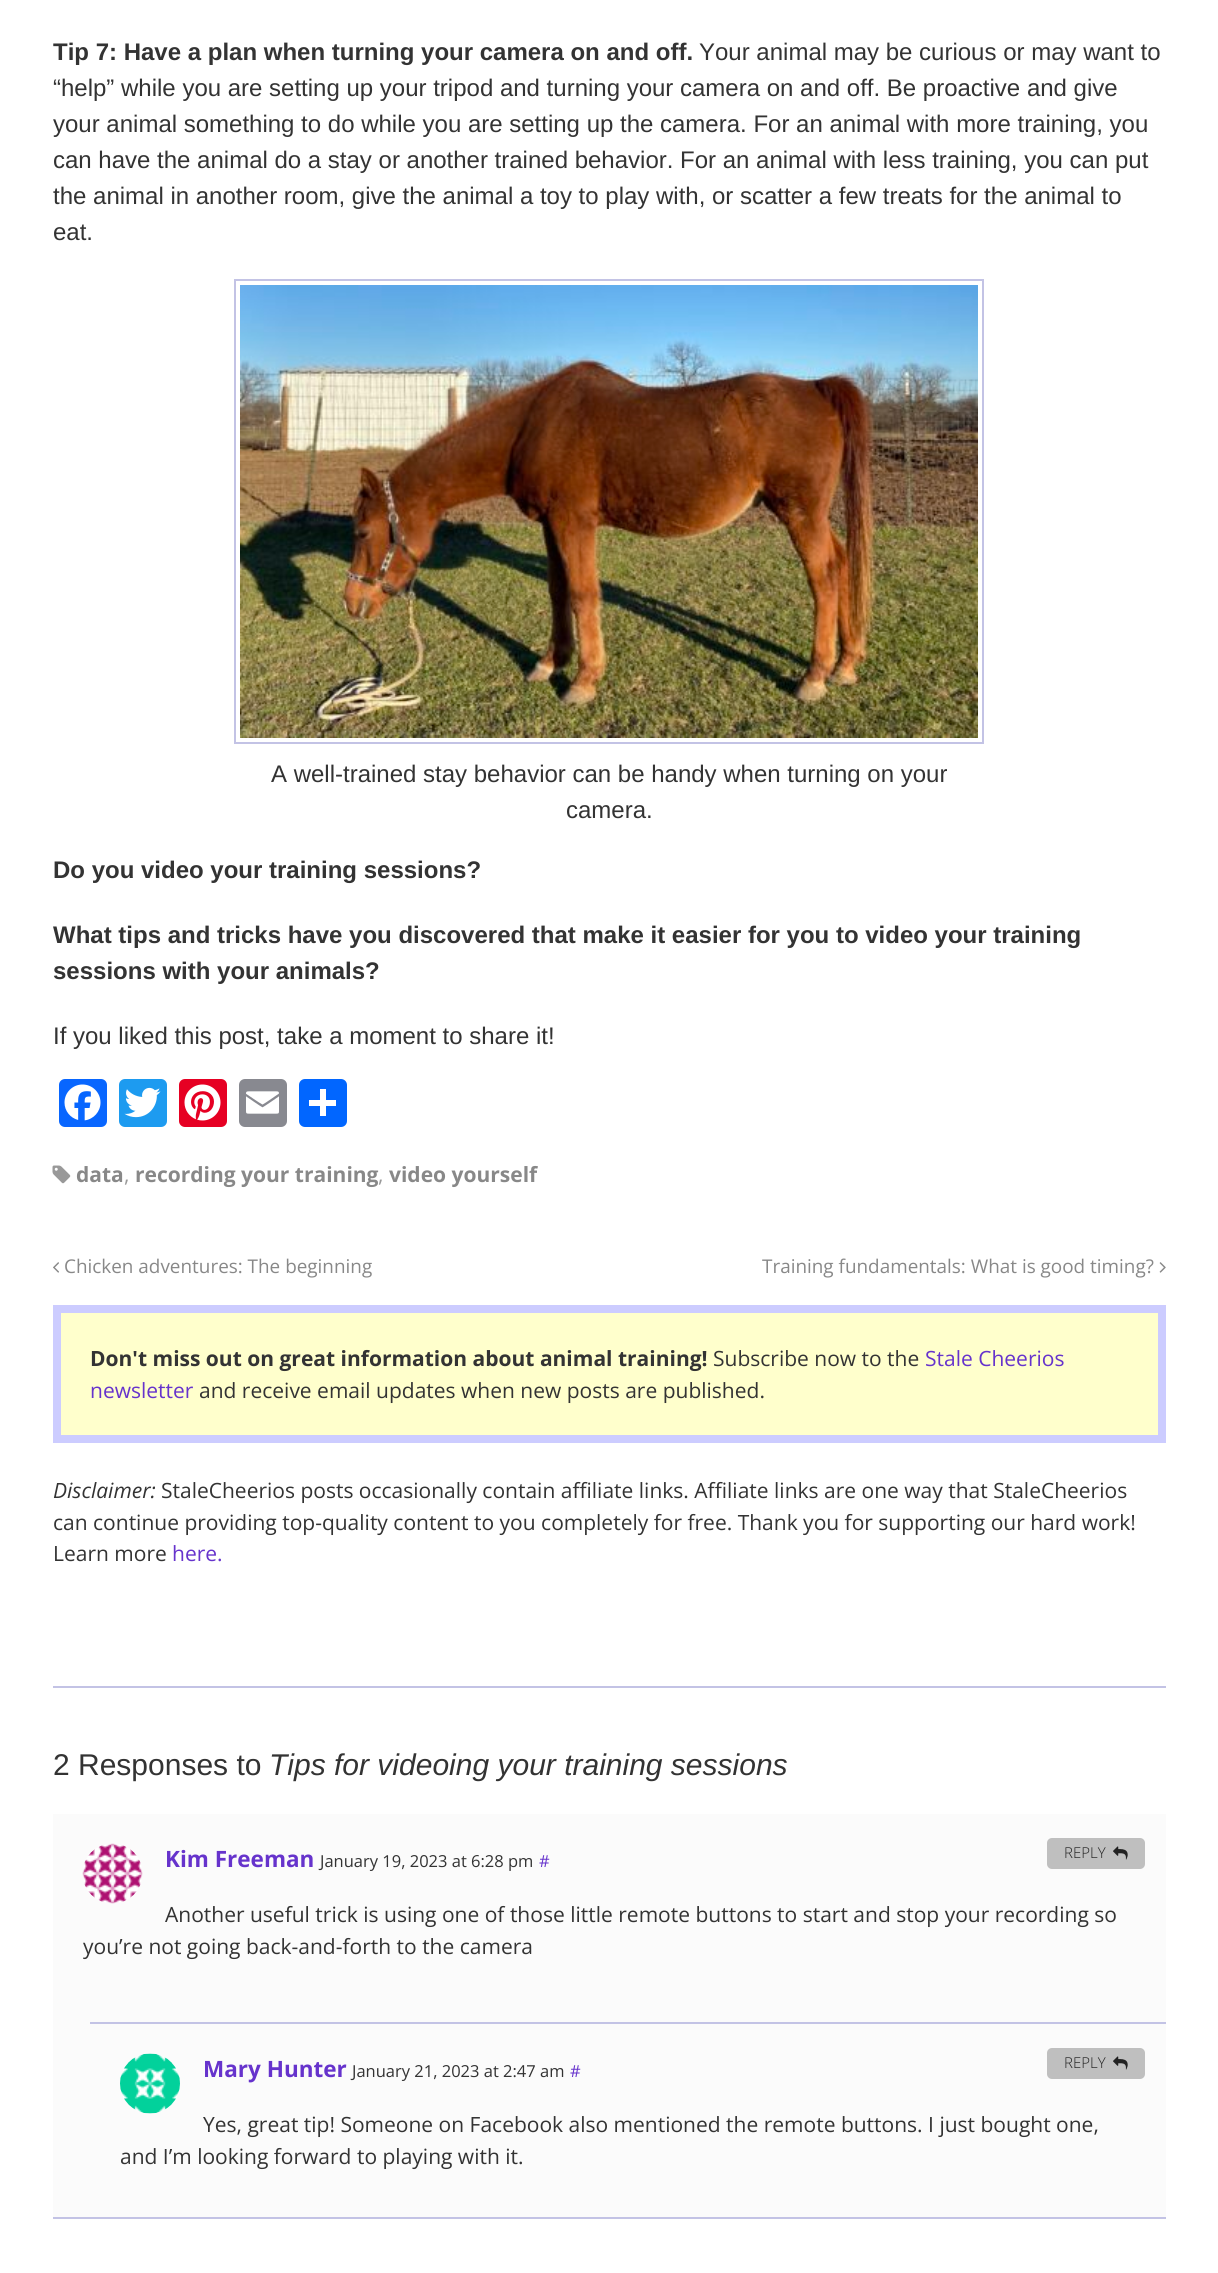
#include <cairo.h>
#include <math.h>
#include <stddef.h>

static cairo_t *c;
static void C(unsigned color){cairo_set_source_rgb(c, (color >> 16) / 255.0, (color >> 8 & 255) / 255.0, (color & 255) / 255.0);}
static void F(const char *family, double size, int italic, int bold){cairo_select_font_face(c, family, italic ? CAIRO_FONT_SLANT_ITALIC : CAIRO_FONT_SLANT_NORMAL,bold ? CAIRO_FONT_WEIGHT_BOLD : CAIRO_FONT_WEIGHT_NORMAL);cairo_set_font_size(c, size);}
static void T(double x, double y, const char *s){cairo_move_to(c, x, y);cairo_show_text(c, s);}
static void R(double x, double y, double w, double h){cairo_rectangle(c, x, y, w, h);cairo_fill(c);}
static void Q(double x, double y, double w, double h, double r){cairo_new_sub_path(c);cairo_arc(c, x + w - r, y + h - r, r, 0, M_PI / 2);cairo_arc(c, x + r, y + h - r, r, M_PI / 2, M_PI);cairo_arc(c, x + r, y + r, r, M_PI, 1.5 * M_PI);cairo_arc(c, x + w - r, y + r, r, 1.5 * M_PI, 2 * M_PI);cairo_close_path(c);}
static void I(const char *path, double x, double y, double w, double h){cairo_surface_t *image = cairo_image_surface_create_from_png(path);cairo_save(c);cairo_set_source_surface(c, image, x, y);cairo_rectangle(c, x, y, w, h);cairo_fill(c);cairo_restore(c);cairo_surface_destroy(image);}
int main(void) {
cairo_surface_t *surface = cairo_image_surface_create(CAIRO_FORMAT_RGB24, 1218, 2273);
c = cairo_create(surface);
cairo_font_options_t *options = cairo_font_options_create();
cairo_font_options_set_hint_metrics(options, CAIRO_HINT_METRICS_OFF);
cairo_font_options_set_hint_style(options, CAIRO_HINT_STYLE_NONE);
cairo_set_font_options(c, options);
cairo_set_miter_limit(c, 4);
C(0xffffff);
cairo_paint(c);
F("Liberation Sans",24,0,1);
C(0x333333);
T(53,60,"Tip 7: Have a plan when turning your camera on and off.");
F("Liberation Sans",24,0,0);
T(699,60,"Your animal may be curious or may want to");
T(53,96,"“help” while you are setting up your tripod and turning your camera on and off. Be proactive and give");
T(53,132,"your animal something to do while you are setting up the camera. For an animal with more training, you");
T(53,168,"can have the animal do a stay or another trained behavior. For an animal with less training, you can put");
T(53,204,"the animal in another room, give the animal a toy to play with, or scatter a few treats for the animal to");
T(53,240,"eat.");
cairo_rectangle(c,235,280,748,463);
C(0xc3c3e5);
cairo_stroke(c);
I("1.png",240,285,738,453);
C(0x333333);
T(271,782,"A well-trained stay behavior can be handy when turning on your");
T(566,818,"camera.");
F("Liberation Sans",24,0,1);
T(53,878,"Do you video your training sessions?");
T(53,943,"What tips and tricks have you discovered that make it easier for you to video your training");
T(53,979,"sessions with your animals?");
F("Liberation Sans",24,0,0);
T(53,1044,"If you liked this post, take a moment to share it!");
C(0x0866ff);
Q(59,1079,48,48,6);
cairo_fill(c);
I("2.png",64,1084,37,37);
C(0x1d9bf0);
Q(119,1079,48,48,6);
cairo_fill(c);
I("3.png",124,1087,37,31);
C(0xe60023);
Q(179,1079,48,48,6);
cairo_fill(c);
I("4.png",184,1084,37,37);
C(0x888990);
Q(239,1079,48,48,6);
cairo_fill(c);
I("5.png",246,1091,33,23);
C(0x0166ff);
Q(299,1079,48,48,6);
cairo_fill(c);
C(0xffffff);
R(320,1089,6,27);
R(309,1100,27,6);
I("6.png",52,1165,19,19);
F("Open Sans",21,0,1);
C(0x888888);
T(76,1182,"data");
F("Open Sans",21,0,0);
C(0x999999);
T(124,1182,",");
F("Open Sans",21,0,1);
C(0x888888);
T(135,1182,"recording your training");
F("Open Sans",21,0,0);
C(0x999999);
T(378,1182,",");
F("Open Sans",21,0,1);
C(0x888888);
T(389,1182,"video yourself");
I("7.png",53,1262,6,11);
F("Open Sans",18.9,0,0);
T(64,1273,"Chicken adventures: The beginning");
T(762,1273,"Training fundamentals: What is good timing?");
I("8.png",1159,1262,7,11);
C(0xffffcc);
cairo_rectangle(c,57,1309,1105,130);
cairo_fill_preserve(c);
C(0xccccff);
cairo_set_line_width(c,8);
cairo_stroke(c);
F("Open Sans",21,0,1);
C(0x333333);
T(90,1366,"Don't miss out on great information about animal training!");
F("Open Sans",21,0,0);
T(713,1366,"Subscribe now to the");
C(0x6633cc);
T(925,1366,"Stale Cheerios");
T(90,1398,"newsletter");
C(0x333333);
T(199,1398,"and receive email updates when new posts are published.");
F("Open Sans",21,1,0);
T(53,1498,"Disclaimer:");
F("Open Sans",21,0,0);
T(161,1498,"StaleCheerios posts occasionally contain affiliate links. Affiliate links are one way that StaleCheerios");
T(53,1530,"can continue providing top-quality content to you completely for free. Thank you for supporting our hard work!");
T(53,1561,"Learn more");
C(0x6633cc);
T(172,1561,"here.");
C(0xc3c3e5);
R(53,1686,1113,2);
F("Liberation Sans",30,0,0);
C(0x333333);
T(53,1775,"2 Responses to");
F("Liberation Sans",30,1,0);
T(269,1775,"Tips for videoing your training sessions");
C(0xfbfbfb);
R(53,1814,1113,403);
C(0xc3c3e5);
R(53,2217,1113,2);
I("9.png",82,1843,61,61);
C(0xbfbfbf);
Q(1047,1838,98,31,5);
cairo_fill(c);
F("Open Sans Light",15,0,0);
C(0x222222);
T(1064,1858,"REPLY");
I("10.png",1113,1846,15,14);
F("Open Sans",21,0,0);
C(0x333333);
T(165,1922,"Another useful trick is using one of those little remote buttons to start and stop your recording so");
T(83,1954,"you’re not going back-and-forth to the camera");
F("Open Sans",22.5,0,1);
C(0x6633cc);
T(165,1867,"Kim Freeman");
F("Open Sans",16.5,0,0);
C(0x333333);
T(320,1867,"January 19, 2023 at 6:28 pm");
C(0x6633cc);
T(539,1867,"#");
C(0xc3c3e5);
R(90,2022,1076,2);
I("11.png",120,2053,60,61);
C(0xbfbfbf);
Q(1047,2048,98,31,5);
cairo_fill(c);
F("Open Sans Light",15,0,0);
C(0x222222);
T(1064,2068,"REPLY");
I("10.png",1113,2056,15,14);
F("Open Sans",21,0,0);
C(0x333333);
T(203,2132,"Yes, great tip! Someone on Facebook also mentioned the remote buttons. I just bought one,");
T(120,2164,"and I’m looking forward to playing with it.");
F("Open Sans",22.5,0,1);
C(0x6633cc);
T(203,2077,"Mary Hunter");
F("Open Sans",16.5,0,0);
C(0x333333);
T(352,2077,"January 21, 2023 at 2:47 am");
C(0x6633cc);
T(570,2077,"#");
cairo_surface_write_to_png(surface, "o.png");
cairo_font_options_destroy(options);
cairo_destroy(c);
cairo_surface_destroy(surface);
return 0;
}
